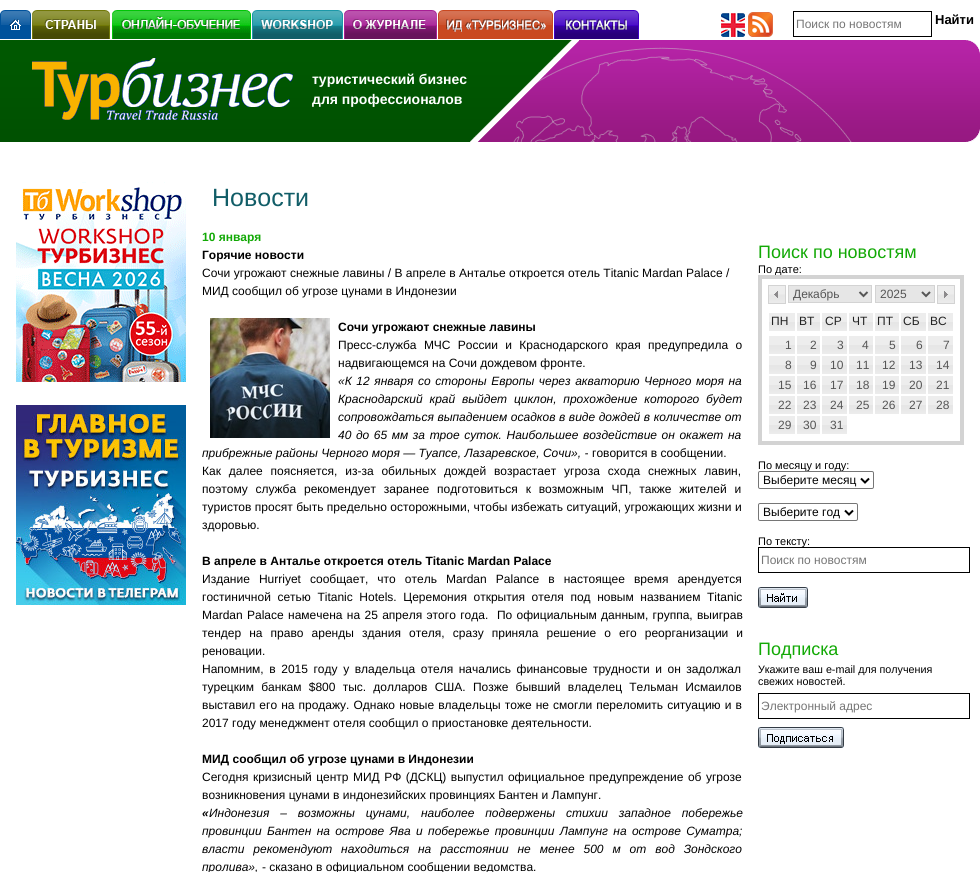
#include <cairo.h>
#include <math.h>
#include <stddef.h>

static cairo_t *c;
static void C(unsigned color){cairo_set_source_rgb(c, (color >> 16) / 255.0, (color >> 8 & 255) / 255.0, (color & 255) / 255.0);}
static void F(const char *family, double size, int italic, int bold){cairo_select_font_face(c, family, italic ? CAIRO_FONT_SLANT_ITALIC : CAIRO_FONT_SLANT_NORMAL,bold ? CAIRO_FONT_WEIGHT_BOLD : CAIRO_FONT_WEIGHT_NORMAL);cairo_set_font_size(c, size);}
static void T(double x, double y, const char *s){cairo_move_to(c, x, y);cairo_show_text(c, s);}
static void L(double x, double y, const char *s, double letter, double word){cairo_move_to(c, x, y);while (*s) {char ch[5] = {0};int n = 0;do ch[n++] = *s++; while ((*s & 0xC0) == 0x80);cairo_show_text(c, ch);cairo_rel_move_to(c, letter + word * (*ch == ' '), 0);}}
static void Q(double x, double y, double w, double h, double r){cairo_new_sub_path(c);cairo_arc(c, x + w - r, y + h - r, r, 0, M_PI / 2);cairo_arc(c, x + r, y + h - r, r, M_PI / 2, M_PI);cairo_arc(c, x + r, y + r, r, M_PI, 1.5 * M_PI);cairo_arc(c, x + w - r, y + r, r, 1.5 * M_PI, 2 * M_PI);cairo_close_path(c);}
static void I(const char *path, double x, double y, double w, double h){cairo_surface_t *image = cairo_image_surface_create_from_png(path);cairo_save(c);cairo_set_source_surface(c, image, x, y);cairo_rectangle(c, x, y, w, h);cairo_fill(c);cairo_restore(c);cairo_surface_destroy(image);}
int main(void) {
cairo_surface_t *surface = cairo_image_surface_create(CAIRO_FORMAT_RGB24, 980, 872);
c = cairo_create(surface);
cairo_font_options_t *options = cairo_font_options_create();
cairo_font_options_set_hint_metrics(options, CAIRO_HINT_METRICS_OFF);
cairo_font_options_set_hint_style(options, CAIRO_HINT_STYLE_NONE);
cairo_set_font_options(c, options);
cairo_set_miter_limit(c, 4);
C(0xffffff);
cairo_paint(c);
I("1.png",0,10,31,29);
I("2.png",32,10,78,29);
I("3.png",112,10,139,29);
I("4.png",252,10,91,29);
I("5.png",344,10,93,29);
I("6.png",438,10,115,29);
I("7.png",554,10,85,29);
I("8.png",721,13,24,24);
I("9.png",748,12,25,25);
cairo_rectangle(c,793.5,11.5,138,25);
C(0x000000);
cairo_set_line_width(c,1);
cairo_stroke(c);
F("Liberation Sans",12,0,0);
C(0x757575);
T(796,28,"Поиск по новостям");
F("Liberation Sans",13,0,1);
C(0x000000);
T(935,24,"Найти");
I("10.png",0,40,470,102);
I("11.png",470,40,109,102);
I("12.png",32,58,261,62);
F("Liberation Sans",14,0,1);
C(0xffffff);
T(312,84,"туристический бизнес");
T(312,104,"для профессионалов");
I("13.png",579,40,401,102);
I("14.png",16,182,170,200);
I("15.png",16,405,170,200);
F("Liberation Sans",25,0,0);
C(0x115d67);
T(212,206,"Новости");
F("Liberation Sans",12,0,1);
C(0x12a905);
T(202,241,"10 января");
C(0x000000);
T(202,259,"Горячие новости");
F("Liberation Sans",12,0,0);
T(202,277,"Сочи угрожают снежные лавины / В апреле в Анталье откроется отель Titanic Mardan Palace /");
T(202,295,"МИД сообщил об угрозе цунами в Индонезии");
I("16.png",210,318,120,120);
F("Liberation Sans",12,0,1);
T(338,331,"Сочи угрожают снежные лавины");
F("Liberation Sans",12,0,0);
L(338,349,"Пресс-служба МЧС России и Краснодарского края предупредила о",0,4);
T(338,367,"надвигающемся на Сочи дождевом фронте.");
F("Liberation Sans",12,1,0);
L(338,385,"«К 12 января со стороны Европы через акваторию Черного моря на",0,1.25);
L(338,403,"Краснодарский край выйдет циклон, прохождение которого будет",0,3.5);
L(338,421,"сопровождаться выпадением осадков в виде дождей в количестве от",0,.25);
L(338,439,"40 до 65 мм за трое суток. Наибольшее воздействие он окажет на",0,1.25);
T(202,457,"прибрежные районы Черного моря — Туапсе, Лазаревское, Сочи», -");
F("Liberation Sans",12,0,0);
T(592,457,"говорится в сообщении.");
L(202,475,"Как далее поясняется, из-за обильных дождей возрастает угроза схода снежных лавин,",0,4.5);
L(202,493,"поэтому служба рекомендует заранее подготовиться к возможным ЧП, также жителей и",0,4.5);
L(202,511,"туристов просят быть предельно осторожными, чтобы избежать ситуаций, угрожающих жизни и",0,.1);
T(202,529,"здоровью.");
F("Liberation Sans",12,0,1);
T(202,565,"В апреле в Анталье откроется отель Titanic Mardan Palace");
F("Liberation Sans",12,0,0);
L(202,583,"Издание Нurriyet сообщает, что отель Mardan Palance в настоящее время арендуется",0,5.75);
L(202,601,"гостиничной сетью Titanic Hotels. Церемония открытия отеля под новым названием Titanic",0,3.25);
L(202,619,"Mardan Palace намечена на 25 апреля этого года.  По официальным данным, группа, выиграв",0,1);
L(202,637,"тендер на право аренды здания отеля, сразу приняла решение о его реорганизации и",0,4.75);
T(202,655,"реновации.");
L(202,673,"Напомним, в 2015 году у владельца отеля начались финансовые трудности и он задолжал",0,2.25);
L(202,691,"турецким банкам $800 тыс. долларов США. Позже бывший владелец Тельман Исмаилов",0,3.9);
L(202,709,"выставил его на продажу. Однако новые владельцы тоже не смогли переломить ситуацию и в",0,.75);
T(202,727,"2017 году менеджмент отеля сообщил о приостановке деятельности.");
F("Liberation Sans",12,0,1);
T(202,763,"МИД сообщил об угрозе цунами в Индонезии");
F("Liberation Sans",12,0,0);
L(202,781,"Сегодня кризисный центр МИД РФ (ДСКЦ) выпустил официальное предупреждение об угрозе",0,1.1);
T(202,799,"возникновения цунами в индонезийских провинциях Бантен и Лампунг.");
F("Liberation Sans",12,1,1);
T(202,817,"«");
F("Liberation Sans",12,1,0);
L(209,817,"Индонезия – возможны цунами, наиболее подвержены стихии западное побережье",0,7.5);
L(202,835,"провинции Бантен на острове Ява и побережье провинции Лампунг на острове Суматра;",0,2);
L(202,853,"власти рекомендуют находиться на расстоянии не менее 500 м от вод Зондского",0,5.6);
T(202,871,"пролива»,");
F("Liberation Sans",12,0,0);
T(262,871,"- сказано в официальном сообщении ведомства.");
F("Liberation Sans",18,0,0);
C(0x12a905);
T(758,258,"Поиск по новостям");
F("Liberation Sans",11,0,0);
C(0x000000);
T(758,273,"По дате:");
cairo_rectangle(c,760,277,202,166);
C(0xd3d3d3);
cairo_set_line_width(c,4);
cairo_stroke(c);
I("17.png",769,286,16,17);
I("18.png",774,291,4,7);
cairo_rectangle(c,768.5,285.5,17,18);
cairo_set_line_width(c,1);
cairo_stroke(c);
I("17.png",938,286,16,17);
I("19.png",944,291,4,7);
cairo_rectangle(c,937.5,285.5,17,18);
cairo_stroke(c);
C(0xe6e6e6);
cairo_rectangle(c,788.5,285.5,83,17);
cairo_fill_preserve(c);
C(0xd3d3d3);
cairo_stroke(c);
cairo_new_path(c);
cairo_move_to(c,859.5,292);
cairo_line_to(c,863.5,296);
cairo_line_to(c,867.5,292);
C(0x555555);
cairo_set_line_width(c,2);
cairo_stroke(c);
F("Liberation Sans",12,0,0);
T(793,298,"Декабрь");
C(0xe6e6e6);
cairo_rectangle(c,875.5,285.5,59,17);
cairo_fill_preserve(c);
C(0xd3d3d3);
cairo_set_line_width(c,1);
cairo_stroke(c);
cairo_new_path(c);
cairo_move_to(c,922,292);
cairo_line_to(c,926,296);
cairo_line_to(c,930,292);
C(0x555555);
cairo_set_line_width(c,2);
cairo_stroke(c);
T(880,298,"2025");
I("20.png",769,313,26,18);
C(0x222222);
T(771,325,"ПН");
I("21.png",797,313,23,18);
T(799,325,"ВТ");
I("22.png",822,313,25,18);
T(825,325,"СР");
I("23.png",849,313,24,18);
T(852,325,"ЧТ");
I("23.png",875,313,24,18);
T(877,325,"ПТ");
I("22.png",901,313,25,18);
T(903,325,"СБ");
I("22.png",928,313,25,18);
T(930,325,"ВС");
I("20.png",769,336,26,18);
C(0x555555);
T(785,349,"1");
I("21.png",797,336,23,18);
T(810,349,"2");
I("22.png",822,336,25,18);
T(837,349,"3");
I("23.png",849,336,24,18);
T(862,349,"4");
I("23.png",875,336,24,18);
T(889,349,"5");
I("22.png",901,336,25,18);
T(916,349,"6");
I("22.png",928,336,25,18);
T(943,349,"7");
I("20.png",769,356,26,18);
T(785,369,"8");
I("21.png",797,356,23,18);
T(810,369,"9");
I("22.png",822,356,25,18);
T(830,369,"10");
I("23.png",849,356,24,18);
T(856,369,"11");
I("23.png",875,356,24,18);
T(882,369,"12");
I("22.png",901,356,25,18);
T(909,369,"13");
I("22.png",928,356,25,18);
T(936,369,"14");
I("20.png",769,376,26,18);
T(778,389,"15");
I("21.png",797,376,23,18);
T(803,389,"16");
I("22.png",822,376,25,18);
T(830,389,"17");
I("23.png",849,376,24,18);
T(856,389,"18");
I("23.png",875,376,24,18);
T(882,389,"19");
I("22.png",901,376,25,18);
T(909,389,"20");
I("22.png",928,376,25,18);
T(936,389,"21");
I("20.png",769,396,26,18);
T(778,409,"22");
I("21.png",797,396,23,18);
T(803,409,"23");
I("22.png",822,396,25,18);
T(830,409,"24");
I("23.png",849,396,24,18);
T(856,409,"25");
I("23.png",875,396,24,18);
T(882,409,"26");
I("22.png",901,396,25,18);
T(909,409,"27");
I("22.png",928,396,25,18);
T(936,409,"28");
I("20.png",769,416,26,18);
T(778,429,"29");
I("21.png",797,416,23,18);
T(803,429,"30");
I("22.png",822,416,25,18);
T(830,429,"31");
F("Liberation Sans",11,0,0);
C(0x000000);
T(758,469,"По месяцу и году:");
C(0xffffff);
Q(758.5,471.5,115,17,1.5);
cairo_fill_preserve(c);
C(0x767676);
cairo_set_line_width(c,1);
cairo_stroke(c);
cairo_new_path(c);
cairo_move_to(c,861,478.5);
cairo_line_to(c,865,482.5);
cairo_line_to(c,869,478.5);
C(0x000000);
cairo_set_line_width(c,2);
cairo_stroke(c);
F("Liberation Sans",12,0,0);
T(763,484,"Выберите месяц");
Q(758.5,503.5,99,17,1.5);
C(0x767676);
cairo_set_line_width(c,1);
cairo_stroke(c);
cairo_new_path(c);
cairo_move_to(c,845,510.5);
cairo_line_to(c,849,514.5);
cairo_line_to(c,853,510.5);
C(0x000000);
cairo_set_line_width(c,2);
cairo_stroke(c);
T(763,516,"Выберите год");
F("Liberation Sans",11,0,0);
T(758,545,"По тексту:");
cairo_rectangle(c,758.5,547.5,211,25);
cairo_set_line_width(c,1);
cairo_stroke(c);
F("Liberation Sans",12,0,0);
C(0x757575);
T(761,564,"Поиск по новостям");
I("24.png",758,587,50,21);
F("Liberation Sans",18,0,0);
C(0x12a905);
T(758,655,"Подписка");
F("Liberation Sans",10.75,0,0);
C(0x000000);
T(758,673,"Укажите ваш e-mail для получения");
T(758,685,"свежих новостей.");
cairo_rectangle(c,758.5,693.5,211,25);
cairo_stroke(c);
F("Liberation Sans",12,0,0);
C(0x757575);
T(761,710,"Электронный адрес");
I("25.png",758,727,86,21);
cairo_surface_write_to_png(surface, "o.png");
cairo_font_options_destroy(options);
cairo_destroy(c);
cairo_surface_destroy(surface);
return 0;
}
